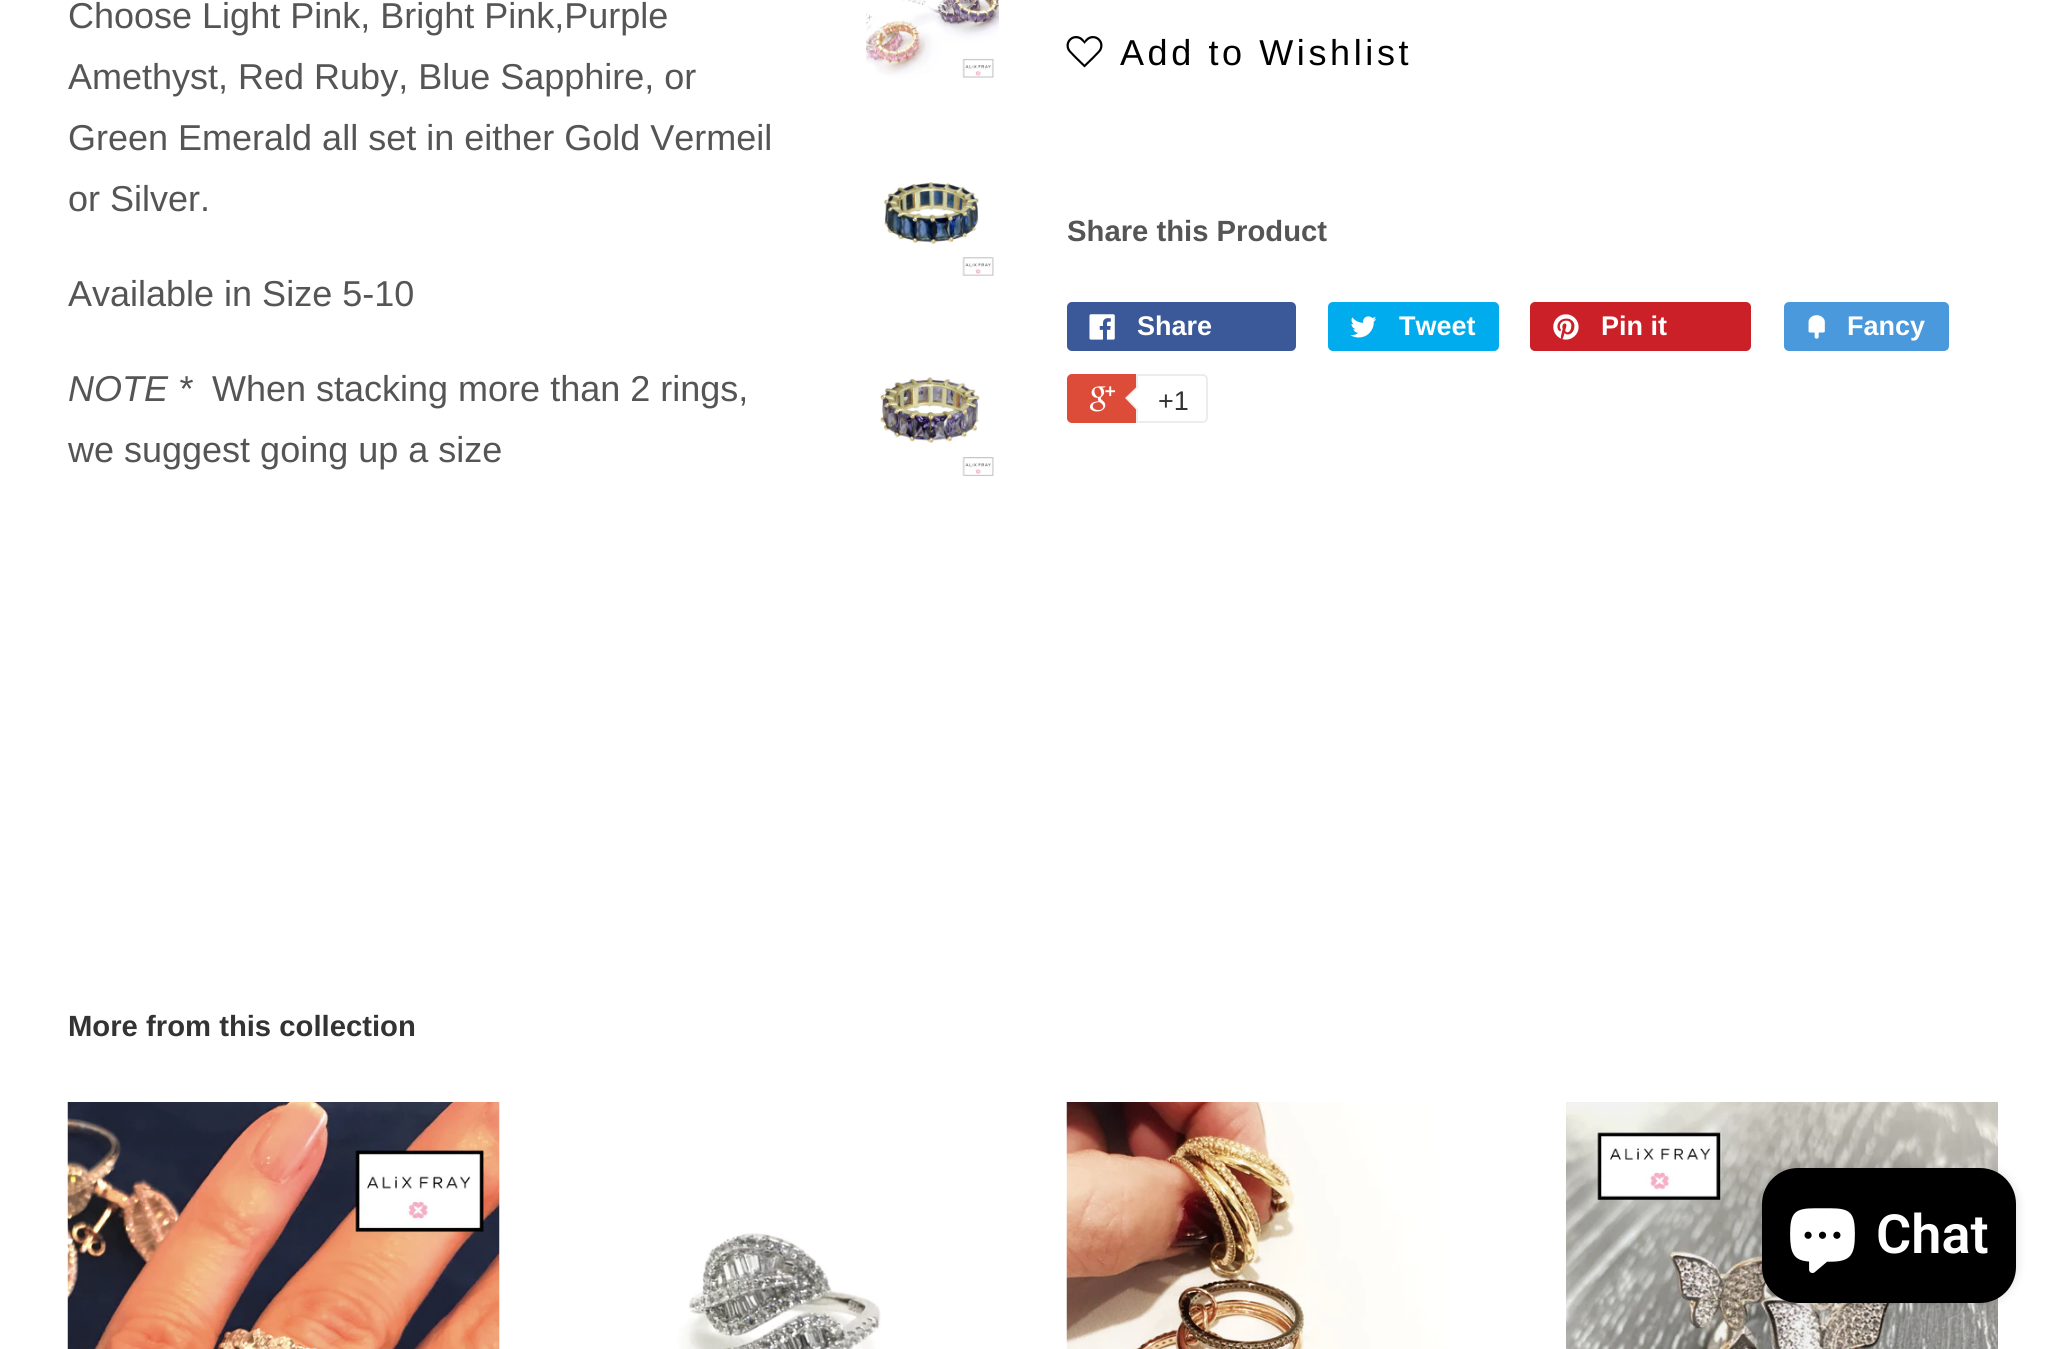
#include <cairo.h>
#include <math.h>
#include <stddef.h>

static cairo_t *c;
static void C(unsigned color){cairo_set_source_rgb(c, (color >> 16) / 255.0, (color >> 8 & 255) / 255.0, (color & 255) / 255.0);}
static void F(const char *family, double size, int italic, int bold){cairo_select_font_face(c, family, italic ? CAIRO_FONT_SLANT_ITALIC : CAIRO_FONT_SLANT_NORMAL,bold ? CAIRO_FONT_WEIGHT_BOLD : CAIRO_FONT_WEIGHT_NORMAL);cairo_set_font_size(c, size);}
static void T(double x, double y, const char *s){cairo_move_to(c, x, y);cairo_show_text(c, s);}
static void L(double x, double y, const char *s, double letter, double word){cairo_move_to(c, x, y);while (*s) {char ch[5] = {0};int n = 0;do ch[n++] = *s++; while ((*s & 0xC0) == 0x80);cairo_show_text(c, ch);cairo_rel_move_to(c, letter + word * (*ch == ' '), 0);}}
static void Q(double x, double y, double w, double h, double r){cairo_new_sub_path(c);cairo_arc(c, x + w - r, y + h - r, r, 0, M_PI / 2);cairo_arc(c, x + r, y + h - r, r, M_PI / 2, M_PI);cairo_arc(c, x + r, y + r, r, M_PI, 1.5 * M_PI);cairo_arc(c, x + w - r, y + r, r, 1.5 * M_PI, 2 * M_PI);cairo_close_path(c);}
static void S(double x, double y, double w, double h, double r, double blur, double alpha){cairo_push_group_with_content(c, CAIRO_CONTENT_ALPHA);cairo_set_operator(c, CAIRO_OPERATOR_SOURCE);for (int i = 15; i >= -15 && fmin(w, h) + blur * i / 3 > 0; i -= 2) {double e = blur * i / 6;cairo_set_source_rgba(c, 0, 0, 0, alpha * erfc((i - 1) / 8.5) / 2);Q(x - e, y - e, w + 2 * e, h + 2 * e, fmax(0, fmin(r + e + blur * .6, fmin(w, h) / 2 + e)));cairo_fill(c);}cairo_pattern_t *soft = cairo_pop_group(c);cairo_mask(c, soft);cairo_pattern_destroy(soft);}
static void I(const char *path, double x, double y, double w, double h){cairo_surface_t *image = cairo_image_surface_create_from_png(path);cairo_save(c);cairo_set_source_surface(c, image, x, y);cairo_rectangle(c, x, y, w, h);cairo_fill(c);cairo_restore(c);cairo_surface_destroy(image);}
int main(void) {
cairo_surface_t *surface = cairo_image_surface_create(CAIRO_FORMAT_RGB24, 2064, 1349);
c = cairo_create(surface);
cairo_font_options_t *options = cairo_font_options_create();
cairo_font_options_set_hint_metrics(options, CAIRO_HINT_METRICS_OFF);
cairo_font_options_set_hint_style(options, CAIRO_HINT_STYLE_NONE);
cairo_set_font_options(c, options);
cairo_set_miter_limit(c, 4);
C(0xffffff);
cairo_paint(c);
F("Liberation Sans",36,0,0);
C(0x555555);
T(68,28,"Choose Light Pink, Bright Pink,Purple");
T(68,89,"Amethyst, Red Ruby, Blue Sapphire, or");
T(68,150,"Green Emerald all set in either Gold Vermeil");
T(68,211,"or Silver.");
T(68,306,"Available in Size 5-10");
F("Liberation Sans",36,1,0);
T(68,401,"NOTE *");
F("Liberation Sans",36,0,0);
T(212,401,"When stacking more than 2 rings,");
T(68,462,"we suggest going up a size");
I("1.png",866,0,133,78);
I("2.png",884,182,110,94);
I("3.png",880,377,114,99);
I("4.png",1066,36,37,32);
C(0x000000);
L(1120,65,"Add to Wishlist",3.6,0);
F("Liberation Sans",29.25,0,1);
C(0x555555);
T(1067,241,"Share this Product");
C(0x3b5998);
Q(1067,302,229,49,5);
cairo_fill(c);
I("5.png",1089,314,26,26);
F("Liberation Sans",27,0,1);
C(0xffffff);
T(1137,335,"Share");
C(0x00aced);
Q(1328,302,171,49,5);
cairo_fill(c);
I("6.png",1350,316,27,22);
C(0xffffff);
T(1399,335,"Tweet");
C(0xcb2027);
Q(1530,302,221,49,5);
cairo_fill(c);
I("7.png",1553,314,26,26);
C(0xffffff);
T(1601,335,"Pin it");
C(0x4999dc);
Q(1784,302,165,49,5);
cairo_fill(c);
I("8.png",1808,315,17,24);
C(0xffffff);
T(1847,335,"Fancy");
C(0xdd4b39);
Q(1067,374,137,49,5);
cairo_fill(c);
I("9.png",1090,386,26,26);
C(0xffffff);
cairo_new_path(c);
cairo_move_to(c,1137,375);
cairo_line_to(c,1203,375);
cairo_curve_to(c,1205,375,1207,377,1207,379);
cairo_line_to(c,1207,418);
cairo_curve_to(c,1207,420,1205,422,1203,422);
cairo_line_to(c,1137,422);
cairo_close_path(c);
cairo_fill_preserve(c);
C(0xececec);
cairo_stroke(c);
cairo_new_path(c);
cairo_move_to(c,1138.5,385);
cairo_line_to(c,1138.5,412);
cairo_line_to(c,1125,398);
cairo_close_path(c);
cairo_fill(c);
C(0xffffff);
cairo_new_path(c);
cairo_move_to(c,1141,385);
cairo_line_to(c,1141,412);
cairo_line_to(c,1127,398);
cairo_close_path(c);
cairo_fill(c);
F("Liberation Sans",27,0,0);
C(0x333333);
T(1158,410,"+1");
F("Liberation Sans",29.25,0,1);
T(68,1036,"More from this collection");
I("10.png",67,1102,433,247);
I("11.png",678,1232,203,117);
I("12.png",1066,1102,382,247);
I("13.png",1566,1102,432,247);
C(0x000000);
S(1762,1168,254,135,36,5.5,.15);
C(0x000000);
Q(1762,1168,254,135,36);
cairo_fill(c);
I("14.png",1790,1208,65,65);
F("Roboto SemiBold",54,0,0);
C(0xffffff);
T(1876,1253,"Chat");
cairo_surface_write_to_png(surface, "o.png");
cairo_font_options_destroy(options);
cairo_destroy(c);
cairo_surface_destroy(surface);
return 0;
}
